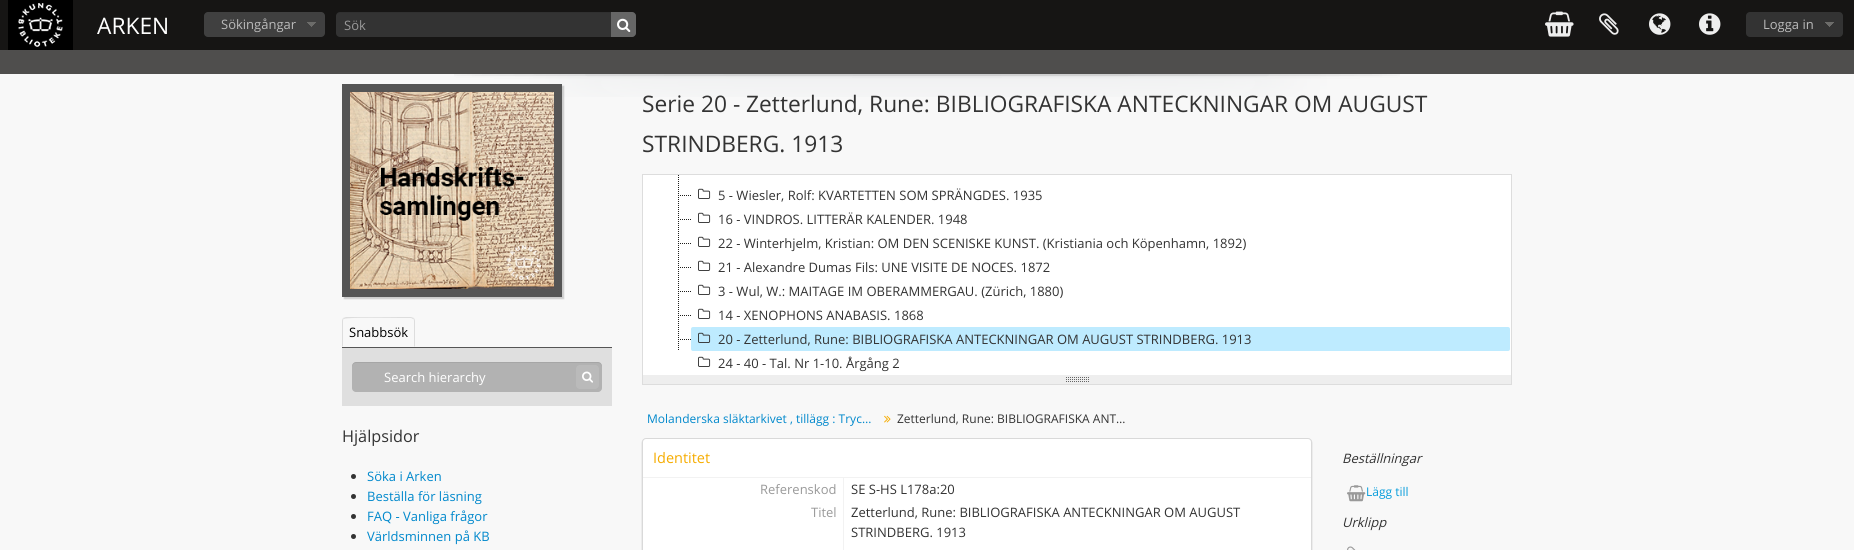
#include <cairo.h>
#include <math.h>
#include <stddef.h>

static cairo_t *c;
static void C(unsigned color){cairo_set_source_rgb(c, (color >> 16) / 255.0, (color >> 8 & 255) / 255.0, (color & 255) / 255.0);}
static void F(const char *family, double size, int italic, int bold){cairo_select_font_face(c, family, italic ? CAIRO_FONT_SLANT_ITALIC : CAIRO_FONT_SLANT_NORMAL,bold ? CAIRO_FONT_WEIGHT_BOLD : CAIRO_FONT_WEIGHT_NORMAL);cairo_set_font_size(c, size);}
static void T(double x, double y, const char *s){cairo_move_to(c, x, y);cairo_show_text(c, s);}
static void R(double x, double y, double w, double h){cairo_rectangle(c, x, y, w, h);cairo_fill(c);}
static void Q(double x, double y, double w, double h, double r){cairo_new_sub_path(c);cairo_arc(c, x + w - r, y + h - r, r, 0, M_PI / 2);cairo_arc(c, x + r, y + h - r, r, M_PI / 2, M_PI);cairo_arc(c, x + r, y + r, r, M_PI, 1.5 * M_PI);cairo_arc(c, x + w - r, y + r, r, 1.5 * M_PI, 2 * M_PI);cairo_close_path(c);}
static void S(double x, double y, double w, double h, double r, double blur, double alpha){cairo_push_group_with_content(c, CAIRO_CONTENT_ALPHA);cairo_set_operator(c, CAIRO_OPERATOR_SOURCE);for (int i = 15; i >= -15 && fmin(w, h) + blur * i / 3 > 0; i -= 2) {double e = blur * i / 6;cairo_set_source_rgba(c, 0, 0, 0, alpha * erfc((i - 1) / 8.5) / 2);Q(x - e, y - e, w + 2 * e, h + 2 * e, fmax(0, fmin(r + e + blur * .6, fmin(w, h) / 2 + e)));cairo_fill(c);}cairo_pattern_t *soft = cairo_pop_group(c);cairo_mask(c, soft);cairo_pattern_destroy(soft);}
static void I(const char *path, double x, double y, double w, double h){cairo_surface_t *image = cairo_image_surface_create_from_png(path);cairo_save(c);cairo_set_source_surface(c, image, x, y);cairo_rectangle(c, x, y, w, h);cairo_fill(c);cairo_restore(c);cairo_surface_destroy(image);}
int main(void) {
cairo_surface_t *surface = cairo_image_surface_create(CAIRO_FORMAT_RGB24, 1854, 550);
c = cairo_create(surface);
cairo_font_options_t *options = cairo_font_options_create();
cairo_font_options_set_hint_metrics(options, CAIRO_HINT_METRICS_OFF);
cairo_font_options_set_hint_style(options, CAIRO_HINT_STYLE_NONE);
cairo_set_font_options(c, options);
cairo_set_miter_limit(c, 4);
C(0xf8f8f8);
cairo_paint(c);
C(0x161514);
R(0,0,1854,50);
I("1.png",8,0,65,50);
F("Open Sans",22.75,0,0);
C(0xffffff);
T(97,34,"ARKEN");
C(0x404040);
Q(204,12,121,25,4);
cairo_fill(c);
I("2.png",307,22,9,5);
F("Open Sans",13,0,0);
C(0xbbbbbb);
T(221,29,"Sökingångar");
C(0x333333);
Q(336,12,300,25,4);
cairo_fill(c);
cairo_set_source_rgba(c,0,0,0,0.07);
cairo_new_path(c);
cairo_move_to(c,340,13);
cairo_line_to(c,634,13);
cairo_curve_to(c,635,13,636,14,636,16);
cairo_curve_to(c,636,14,634,12,632,12);
cairo_line_to(c,340,12);
cairo_curve_to(c,337,12,336,14,336,16);
cairo_curve_to(c,336,14,338,13,340,13);
cairo_close_path(c);
cairo_fill(c);
C(0x999999);
T(344,30,"Sök");
C(0x666666);
cairo_new_path(c);
cairo_move_to(c,611,12);
cairo_line_to(c,632,12);
cairo_curve_to(c,634,12,636,14,636,16);
cairo_line_to(c,636,33);
cairo_curve_to(c,636,35,634,37,632,37);
cairo_line_to(c,611,37);
cairo_close_path(c);
cairo_fill(c);
I("3.png",617,18,14,14);
I("4.png",1545,11,29,26);
I("5.png",1599,13,20,22);
I("6.png",1649,13,22,22);
I("7.png",1699,13,22,22);
C(0x333333);
Q(1746,12,97,25,4);
cairo_fill(c);
I("8.png",1825,22,9,5);
C(0xbbbbbb);
T(1763,29,"Logga in");
C(0x4f4e4d);
R(0,50,1854,24);
I("9.png",454,74,946,23);
C(0x191919);
S(344,86,220,213,0,.5,.2);
C(0x555555);
R(342,84,220,213);
I("10.png",350,92,204,197);
R(342,347,270,1);
C(0xdddddd);
cairo_new_path(c);
cairo_move_to(c,346,317);
cairo_line_to(c,343,318);
cairo_line_to(c,344,319);
cairo_curve_to(c,346,317,394,318,400,318);
cairo_line_to(c,411,318);
cairo_line_to(c,413,319);
cairo_line_to(c,414,318);
cairo_line_to(c,411,317);
cairo_close_path(c);
cairo_fill(c);
cairo_new_path(c);
cairo_move_to(c,415,347);
cairo_line_to(c,415,321);
cairo_curve_to(c,415,320,414.5,319,414,318);
cairo_line_to(c,413,319);
cairo_curve_to(c,414,319,414,320,414,321);
cairo_line_to(c,414,346);
cairo_close_path(c);
cairo_fill(c);
cairo_new_path(c);
cairo_move_to(c,342,347);
cairo_line_to(c,343,346);
cairo_line_to(c,343,321);
cairo_curve_to(c,343,320,343,319,344,319);
cairo_line_to(c,343,318);
cairo_curve_to(c,342.5,319,342,320,342,321);
cairo_close_path(c);
cairo_fill(c);
C(0x000000);
T(349,337,"Snabbsök");
C(0xdfdfdf);
R(342,348,270,58);
C(0xb2b2b2);
Q(352,362,250,30,4);
cairo_fill(c);
cairo_set_source_rgba(c,0,0,0,0.07);
cairo_new_path(c);
cairo_move_to(c,356,363);
cairo_line_to(c,598,363);
cairo_curve_to(c,600,363,602,365,602,367);
cairo_line_to(c,602,366);
cairo_curve_to(c,602,364,600,362,598,362);
cairo_line_to(c,356,362);
cairo_curve_to(c,354,362,352,364,352,366);
cairo_line_to(c,352,367);
cairo_curve_to(c,352,365,354,363,356,363);
cairo_close_path(c);
cairo_fill(c);
C(0xffffff);
T(384,382,"Search hierarchy");
C(0xbababa);
Q(576,365,23,24,4);
cairo_fill(c);
I("11.png",582,371,11,12);
F("Open Sans",16.25,0,0);
C(0x333333);
T(342,442,"Hjälpsidor");
cairo_new_path(c);
cairo_arc(c,353.5,476.5,2.5,0,2 * M_PI);
cairo_fill(c);
F("Open Sans",13,0,0);
C(0x0088cc);
T(367,481,"Söka i Arken");
C(0x333333);
cairo_new_path(c);
cairo_arc(c,353.5,496.5,2.5,0,2 * M_PI);
cairo_fill(c);
C(0x0088cc);
T(367,501,"Beställa för läsning");
C(0x333333);
cairo_new_path(c);
cairo_arc(c,353.5,516.5,2.5,0,2 * M_PI);
cairo_fill(c);
C(0x0088cc);
T(367,521,"FAQ - Vanliga frågor");
C(0x333333);
cairo_new_path(c);
cairo_arc(c,353.5,536.5,2.5,0,2 * M_PI);
cairo_fill(c);
C(0x0088cc);
T(367,541,"Världsminnen på KB");
F("Open Sans",22.75,0,0);
C(0x333333);
T(642,112,"Serie 20 - Zetterlund, Rune: BIBLIOGRAFISKA ANTECKNINGAR OM AUGUST");
T(642,152,"STRINDBERG. 1913");
cairo_rectangle(c,642.5,174.5,869,201);
C(0xdddddd);
cairo_set_line_width(c,1);
cairo_stroke(c);
C(0xeeeeee);
R(643,375,868,9);
I("17.png",1066,377,23,5);
cairo_rectangle(c,642.5,374.5,869,10);
C(0xdddddd);
cairo_stroke(c);
C(0xffffff);
R(643,175,868,200);
I("12.png",678,175,1,7);
I("13.png",678,183,1,23);
I("14.png",680,195,11,1);
I("15.png",698,188,13,11);
F("Open Sans",13,0,0);
C(0x333333);
T(718,200,"5 - Wiesler, Rolf: KVARTETTEN SOM SPRÄNGDES. 1935");
I("13.png",678,207,1,23);
I("14.png",680,219,11,1);
I("15.png",698,212,13,11);
T(718,224,"16 - VINDROS. LITTERÄR KALENDER. 1948");
I("13.png",678,231,1,23);
I("14.png",680,243,11,1);
I("15.png",698,236,13,11);
T(718,248,"22 - Winterhjelm, Kristian: OM DEN SCENISKE KUNST. (Kristiania och Köpenhamn, 1892)");
I("13.png",678,255,1,23);
I("14.png",680,267,11,1);
I("15.png",698,260,13,11);
T(718,272,"21 - Alexandre Dumas Fils: UNE VISITE DE NOCES. 1872");
I("13.png",678,279,1,23);
I("14.png",680,291,11,1);
I("15.png",698,284,13,11);
T(718,296,"3 - Wul, W.: MAITAGE IM OBERAMMERGAU. (Zürich, 1880)");
I("13.png",678,303,1,23);
I("14.png",680,315,11,1);
I("15.png",698,308,13,11);
T(718,320,"14 - XENOPHONS ANABASIS. 1868");
I("13.png",678,327,1,23);
I("14.png",680,339,11,1);
C(0xbeebff);
Q(691,327,819,24,2);
cairo_fill(c);
I("16.png",698,332,13,11);
C(0x333333);
T(718,344,"20 - Zetterlund, Rune: BIBLIOGRAFISKA ANTECKNINGAR OM AUGUST STRINDBERG. 1913");
I("15.png",698,356,13,11);
T(718,368,"24 - 40 - Tal. Nr 1-10. Årgång 2");
F("Open Sans",12,0,0);
C(0x0088cc);
T(647,423,"Molanderska släktarkivet , tillägg : Tryc…");
I("18.png",884,415,7,8);
C(0x333333);
T(897,423,"Zetterlund, Rune: BIBLIOGRAFISKA ANT…");
C(0x000000);
S(642,439,670,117,4,.5,.2);
C(0xffffff);
Q(642.5,438.5,669,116,3.5);
cairo_fill_preserve(c);
C(0xd9d9d9);
cairo_stroke(c);
C(0xf2f2f2);
R(643,477,668,1);
F("Open Sans",14.5,0,0);
C(0xf6ac00);
T(653,463,"Identitet");
C(0xf2f2f2);
R(843,478,1,72);
F("Open Sans",13,0,0);
C(0x999999);
T(760,494,"Referenskod");
C(0x333333);
T(851,494,"SE S-HS L178a:20");
C(0x999999);
T(811,517,"Titel");
C(0x333333);
T(851,517,"Zetterlund, Rune: BIBLIOGRAFISKA ANTECKNINGAR OM AUGUST");
T(851,537,"STRINDBERG. 1913");
F("Open Sans",13,1,0);
T(1342,463,"Beställningar");
I("19.png",1347,485,19,17);
F("Open Sans",12,0,0);
C(0x049cdb);
T(1366,496,"Lägg till");
F("Open Sans",13,1,0);
C(0x333333);
T(1342,527,"Urklipp");
I("20.png",1347,546,9,4);
cairo_surface_write_to_png(surface, "o.png");
cairo_font_options_destroy(options);
cairo_destroy(c);
cairo_surface_destroy(surface);
return 0;
}
